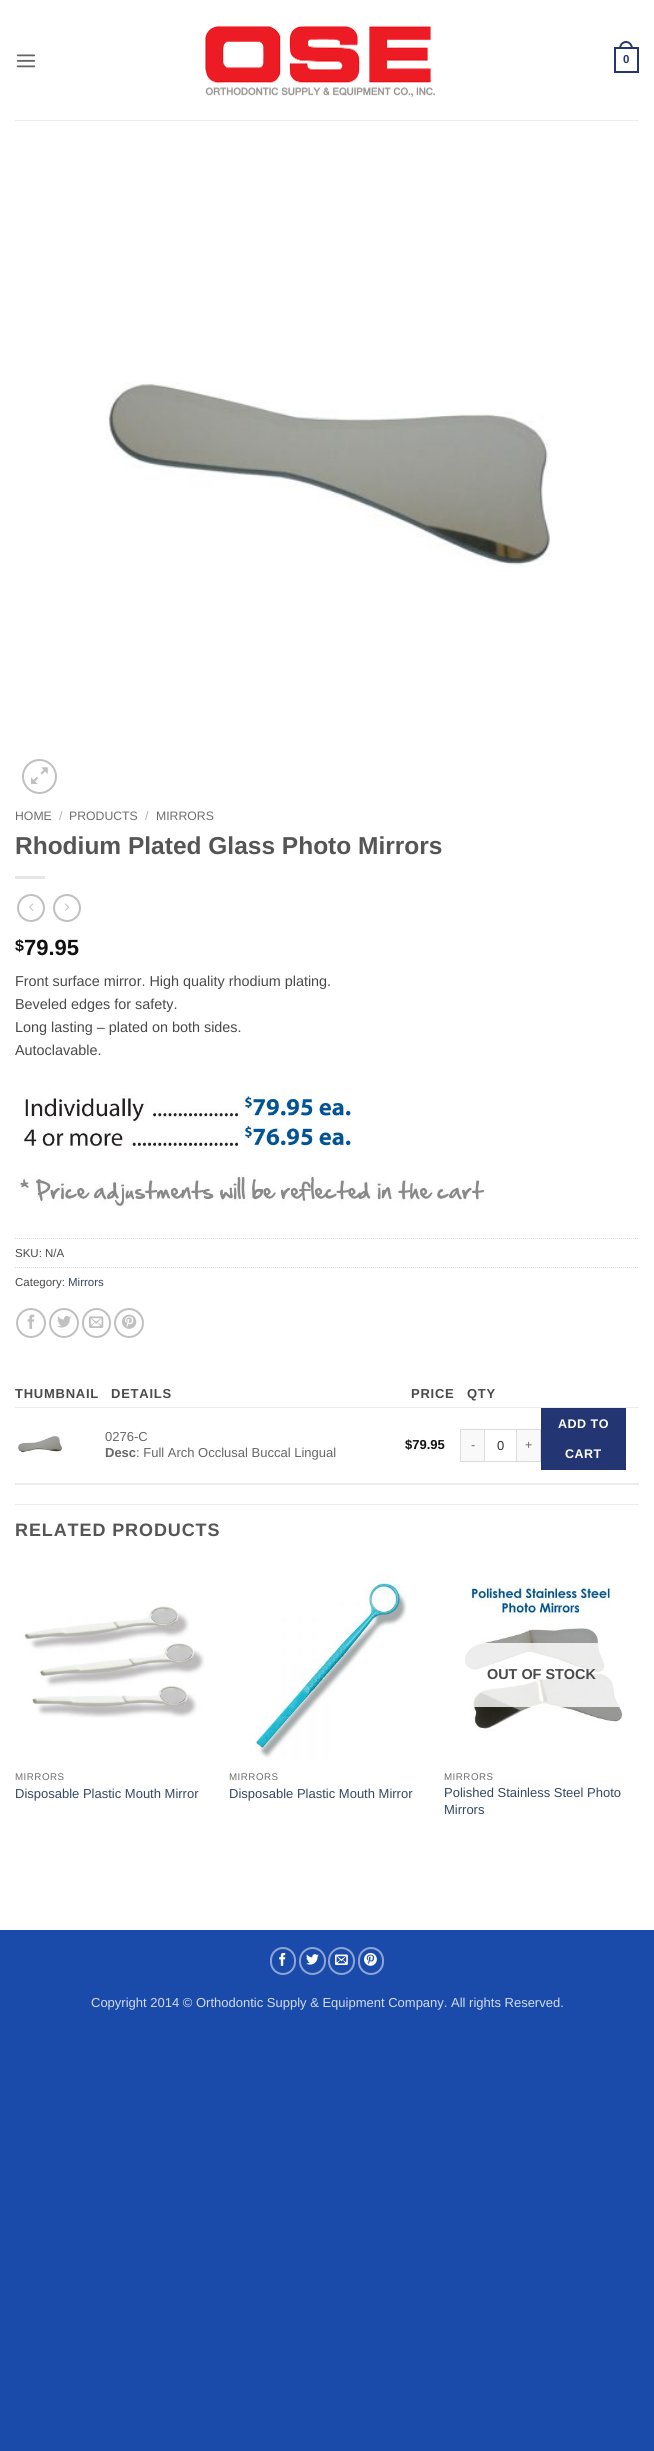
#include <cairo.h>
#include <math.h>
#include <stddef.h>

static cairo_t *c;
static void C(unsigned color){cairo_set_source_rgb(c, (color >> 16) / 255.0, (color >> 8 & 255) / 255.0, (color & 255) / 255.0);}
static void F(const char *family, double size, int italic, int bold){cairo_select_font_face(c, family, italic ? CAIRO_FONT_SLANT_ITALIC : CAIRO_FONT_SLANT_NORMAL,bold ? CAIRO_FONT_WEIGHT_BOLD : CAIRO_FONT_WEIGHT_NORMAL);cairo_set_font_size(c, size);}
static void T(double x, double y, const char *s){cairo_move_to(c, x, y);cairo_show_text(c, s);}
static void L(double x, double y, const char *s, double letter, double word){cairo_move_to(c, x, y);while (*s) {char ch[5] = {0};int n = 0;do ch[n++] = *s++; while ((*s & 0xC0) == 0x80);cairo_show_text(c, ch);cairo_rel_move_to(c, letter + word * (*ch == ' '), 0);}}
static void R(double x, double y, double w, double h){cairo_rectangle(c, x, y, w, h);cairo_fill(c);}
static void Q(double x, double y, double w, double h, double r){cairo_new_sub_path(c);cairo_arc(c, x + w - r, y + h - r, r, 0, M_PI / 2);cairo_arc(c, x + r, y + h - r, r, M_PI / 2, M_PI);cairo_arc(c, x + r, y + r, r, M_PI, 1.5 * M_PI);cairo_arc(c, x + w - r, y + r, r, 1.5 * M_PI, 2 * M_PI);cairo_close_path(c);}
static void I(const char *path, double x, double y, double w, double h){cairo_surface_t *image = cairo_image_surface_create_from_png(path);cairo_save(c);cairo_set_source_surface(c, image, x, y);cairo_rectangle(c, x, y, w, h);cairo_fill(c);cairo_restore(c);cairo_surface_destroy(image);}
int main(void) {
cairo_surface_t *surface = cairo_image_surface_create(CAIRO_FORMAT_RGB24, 654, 2451);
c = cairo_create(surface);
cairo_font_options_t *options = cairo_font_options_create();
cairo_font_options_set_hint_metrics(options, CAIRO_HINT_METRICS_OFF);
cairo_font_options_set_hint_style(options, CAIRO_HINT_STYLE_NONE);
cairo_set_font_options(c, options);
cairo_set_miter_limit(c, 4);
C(0x1b4baa);
cairo_paint(c);
C(0xffffff);
R(0,0,654,1930);
I("1.png",16,54,20,14);
I("2.png",205,25,230,73);
cairo_rectangle(c,615,48,23,24);
C(0x233572);
cairo_stroke(c);
cairo_set_fill_rule(c,CAIRO_FILL_RULE_EVEN_ODD);
cairo_new_path(c);
cairo_move_to(c,626,41);
cairo_curve_to(c,630.5,41,633,45,633,49);
cairo_line_to(c,619,49);
cairo_curve_to(c,619,45,621.5,41,626,41);
cairo_close_path(c);
cairo_move_to(c,626,43);
cairo_curve_to(c,629.5,43,631,46,631,49);
cairo_line_to(c,621,49);
cairo_curve_to(c,621,46,622.5,43,626,43);
cairo_close_path(c);
cairo_fill(c);
F("Liberation Sans",11.5,0,1);
T(623,63,"0");
C(0xededed);
R(15,120,624,1);
I("3.png",106,382,446,185);
cairo_arc(c,39.5,776.5,16.5,0,2 * M_PI);
C(0xc0c0c0);
cairo_stroke(c);
I("4.png",31,767,17,18);
F("Liberation Sans",12.25,0,0);
C(0x6e6e6e);
T(15,820,"HOME");
C(0xb2b2b2);
T(59,820,"/");
C(0x6e6e6e);
T(69,820,"PRODUCTS");
C(0xb2b2b2);
T(145,820,"/");
C(0x6e6e6e);
T(156,820,"MIRRORS");
F("Liberation Sans",24.5,0,1);
C(0x555555);
T(15,854,"Rhodium Plated Glass Photo Mirrors");
C(0xe6e6e6);
R(15,876,30,3);
cairo_new_path(c);
cairo_arc(c,31,908,13,0,2 * M_PI);
C(0xc0c0c0);
cairo_stroke(c);
I("5.png",29,903,5,8);
cairo_arc(c,67,908,13,0,2 * M_PI);
cairo_stroke(c);
I("6.png",65,903,5,8);
F("Liberation Sans",16,0,1);
C(0x111111);
T(15,951,"$");
F("Liberation Sans",22,0,1);
T(24,955,"79.95");
F("Liberation Sans",14.4,0,0);
C(0x4a4a4a);
T(15,986,"Front surface mirror. High quality rhodium plating.");
T(15,1009,"Beveled edges for safety.");
T(15,1032,"Long lasting – plated on both sides.");
T(15,1055,"Autoclavable.");
I("7.png",20,1094,465,112);
cairo_new_path(c);
cairo_move_to(c,15,1238.5);
cairo_line_to(c,639,1238.5);
C(0xdddddd);
cairo_set_line_width(c,1);
cairo_set_dash(c,(double[]){1,1},2,0);
cairo_stroke(c);
F("Liberation Sans",11.5,0,0);
C(0x4a4a4a);
T(15,1257,"SKU: N/A");
cairo_new_path(c);
cairo_move_to(c,15,1267.5);
cairo_line_to(c,639,1267.5);
C(0xdddddd);
cairo_stroke(c);
C(0x4a4a4a);
T(15,1286,"Category:");
C(0x334862);
T(68,1286,"Mirrors");
cairo_new_path(c);
cairo_arc(c,31,1323,14,0,2 * M_PI);
C(0xc0c0c0);
cairo_set_line_width(c,2);
cairo_set_dash(c,NULL,0,0);
cairo_stroke(c);
I("8.png",27,1314,8,15);
cairo_arc(c,64,1323,14,0,2 * M_PI);
cairo_stroke(c);
I("9.png",57,1316,14,12);
Q(83,1309,27,28,13.5);
cairo_stroke(c);
I("10.png",89,1316,15,12);
cairo_arc(c,129,1323,14,0,2 * M_PI);
cairo_stroke(c);
I("11.png",122,1314,15,15);
C(0xececec);
R(15,1407,624,1);
F("Liberation Sans",13,0,1);
C(0x4a4a4a);
L(15,1398,"THUMBNAIL",.75,0);
L(111,1398,"DETAILS",.75,0);
L(411,1398,"PRICE",.75,0);
L(467,1398,"QTY",.75,0);
F("Liberation Sans",13,0,0);
C(0x666666);
T(105,1441,"0276-C");
F("Liberation Sans",13,0,1);
T(105,1457,"Desc");
F("Liberation Sans",13,0,0);
T(136,1457,": Full Arch Occlusal Buccal Lingual");
C(0x233572);
cairo_rectangle(c,541.5,1408.5,84,61);
cairo_fill_preserve(c);
C(0x21326c);
cairo_set_line_width(c,1);
cairo_stroke(c);
F("Liberation Sans",12.5,0,1);
C(0xffffff);
L(558,1428,"ADD TO",.5,0);
L(565,1458,"CART",.5,0);
C(0xececec);
R(15,1483,624,2);
I("12.png",17,1435,46,18);
F("Liberation Sans",13,0,1);
C(0x111111);
T(405,1449,"$79.95");
C(0xf9f9f9);
R(461,1430,23,31);
C(0xdddddd);
R(460,1429,24,1);
R(460,1461,24,1);
R(460,1429,1,33);
F("Liberation Sans",12.5,0,0);
C(0x666666);
L(471,1449,"-",.5,0);
cairo_rectangle(c,484.5,1429.5,32,32);
C(0xdddddd);
cairo_stroke(c);
F("Liberation Sans",13,0,0);
C(0x333333);
T(497,1450,"0");
C(0xf9f9f9);
R(517,1430,23,31);
C(0xdddddd);
R(517,1429,24,1);
R(540,1429,1,33);
R(517,1461,24,1);
F("Liberation Sans",12.5,0,0);
C(0x666666);
L(525,1449,"+",.5,0);
C(0xececec);
R(15,1504,624,1);
F("Liberation Sans",18,0,1);
C(0x555555);
L(15,1536,"RELATED PRODUCTS",.9,0);
I("13.png",20,1606,185,112);
F("Liberation Sans",9.75,0,0);
C(0x6e6e6e);
L(15,1780,"MIRRORS",.5,0);
F("Liberation Sans",13,0,0);
C(0x334862);
T(15,1798,"Disposable Plastic Mouth Mirror");
I("14.png",250,1575,157,183);
F("Liberation Sans",9.75,0,0);
C(0x6e6e6e);
L(229,1780,"MIRRORS",.5,0);
F("Liberation Sans",13,0,0);
C(0x334862);
T(229,1798,"Disposable Plastic Mouth Mirror");
I("15.png",465,1585,159,146);
cairo_set_source_rgba(c,1,1,1,0.81);
R(465,1643,155,64);
F("Liberation Sans",14.4,0,1);
C(0x4a4a4a);
T(487,1679,"OUT OF STOCK");
F("Liberation Sans",9.75,0,0);
C(0x6e6e6e);
L(444,1780,"MIRRORS",.5,0);
F("Liberation Sans",13,0,0);
C(0x334862);
T(444,1797,"Polished Stainless Steel Photo");
T(444,1814,"Mirrors");
Q(271,1948,24,26,12);
C(0x8da5d5);
cairo_set_line_width(c,2);
cairo_stroke(c);
I("16.png",279,1952,7,14);
Q(300,1948,25,26,12.5);
cairo_stroke(c);
I("17.png",306,1954,13,11);
Q(329,1948,25,26,12.5);
cairo_stroke(c);
I("18.png",335,1954,13,11);
Q(359,1948,24,26,12);
cairo_stroke(c);
I("19.png",364,1952,13,14);
C(0xd1dbee);
T(91,2007,"Copyright 2014 © Orthodontic Supply & Equipment Company. All rights Reserved.");
cairo_surface_write_to_png(surface, "o.png");
cairo_font_options_destroy(options);
cairo_destroy(c);
cairo_surface_destroy(surface);
return 0;
}
